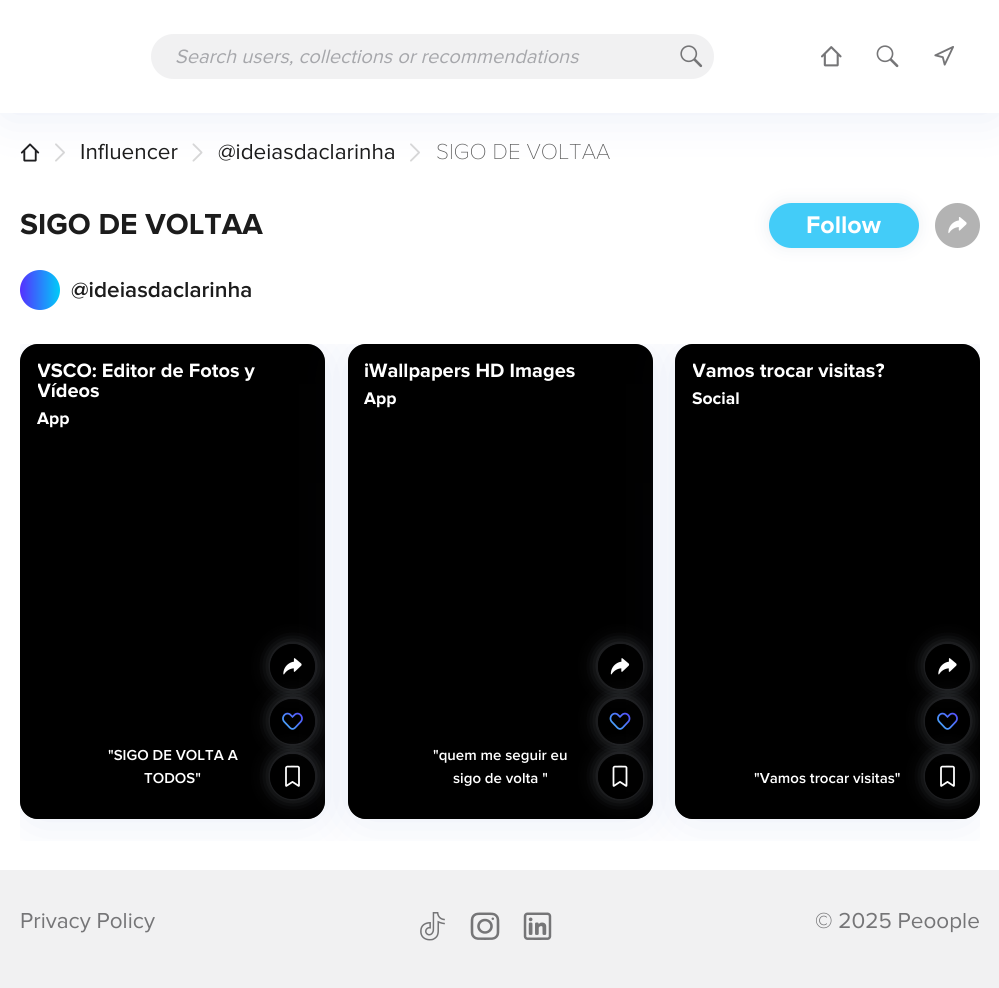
#include <cairo.h>
#include <math.h>
#include <stddef.h>

static cairo_t *c;
static void C(unsigned color){cairo_set_source_rgb(c, (color >> 16) / 255.0, (color >> 8 & 255) / 255.0, (color & 255) / 255.0);}
static void F(const char *family, double size, int italic, int bold){cairo_select_font_face(c, family, italic ? CAIRO_FONT_SLANT_ITALIC : CAIRO_FONT_SLANT_NORMAL,bold ? CAIRO_FONT_WEIGHT_BOLD : CAIRO_FONT_WEIGHT_NORMAL);cairo_set_font_size(c, size);}
static void T(double x, double y, const char *s){cairo_move_to(c, x, y);cairo_show_text(c, s);}
static void R(double x, double y, double w, double h){cairo_rectangle(c, x, y, w, h);cairo_fill(c);}
static void Q(double x, double y, double w, double h, double r){cairo_new_sub_path(c);cairo_arc(c, x + w - r, y + h - r, r, 0, M_PI / 2);cairo_arc(c, x + r, y + h - r, r, M_PI / 2, M_PI);cairo_arc(c, x + r, y + r, r, M_PI, 1.5 * M_PI);cairo_arc(c, x + w - r, y + r, r, 1.5 * M_PI, 2 * M_PI);cairo_close_path(c);}
static void S(double x, double y, double w, double h, double r, double blur, double alpha){cairo_push_group_with_content(c, CAIRO_CONTENT_ALPHA);cairo_set_operator(c, CAIRO_OPERATOR_SOURCE);for (int i = 15; i >= -15 && fmin(w, h) + blur * i / 3 > 0; i -= 2) {double e = blur * i / 6;cairo_set_source_rgba(c, 0, 0, 0, alpha * erfc((i - 1) / 8.5) / 2);Q(x - e, y - e, w + 2 * e, h + 2 * e, fmax(0, fmin(r + e + blur * .6, fmin(w, h) / 2 + e)));cairo_fill(c);}cairo_pattern_t *soft = cairo_pop_group(c);cairo_mask(c, soft);cairo_pattern_destroy(soft);}
static void I(const char *path, double x, double y, double w, double h){cairo_surface_t *image = cairo_image_surface_create_from_png(path);cairo_save(c);cairo_set_source_surface(c, image, x, y);cairo_rectangle(c, x, y, w, h);cairo_fill(c);cairo_restore(c);cairo_surface_destroy(image);}
int main(void) {
cairo_surface_t *surface = cairo_image_surface_create(CAIRO_FORMAT_RGB24, 999, 988);
c = cairo_create(surface);
cairo_font_options_t *options = cairo_font_options_create();
cairo_font_options_set_hint_metrics(options, CAIRO_HINT_METRICS_OFF);
cairo_font_options_set_hint_style(options, CAIRO_HINT_STYLE_NONE);
cairo_set_font_options(c, options);
cairo_set_miter_limit(c, 4);
cairo_pattern_t *gradient;
C(0xffffff);
cairo_paint(c);
I("5.png",20,143,20,19);
I("6.png",55,143,10,19);
I("7.png",192,143,11,19);
I("6.png",410,143,10,19);
C(0x809ad3);
S(6,11,988,100,0,25.5,.2);
C(0xffffff);
R(0,0,999,113);
C(0xf1f1f2);
Q(151,34,563,45,22.5);
cairo_fill(c);
F("Proxima Nova",20,1,0);
C(0xa6a7ab);
T(175,63,"Search users, collections or recommendations");
I("1.png",680,45,23,23);
I("2.png",821,46,21,21);
I("3.png",876,45,23,23);
I("4.png",934,46,20,20);
F("Proxima Nova",22.5,0,0);
C(0x1c1c1c);
T(80,159,"Influencer");
T(218,159,"@ideiasdaclarinha");
F("Proxima Nova Thin",22.5,0,0);
C(0x585858);
T(436,159,"SIGO DE VOLTAA");
F("Proxima Nova",30,0,1);
C(0x1c1c1c);
T(20,234,"SIGO DE VOLTAA");
C(0xc3cbd9);
S(771,205,145,40,20,9,.4);
C(0x43ccf8);
Q(769,203,150,45,22.5);
cairo_fill(c);
F("Proxima Nova",25,0,1);
C(0xffffff);
T(806,233,"Follow");
cairo_set_source_rgba(c,0,0,0,0.3);
cairo_new_path(c);
cairo_arc(c,957.5,225.5,22.5,0,2 * M_PI);
cairo_fill(c);
I("8.png",948,217,19,17);
gradient = cairo_pattern_create_linear(60,290,20,290);
cairo_pattern_add_color_stop_rgba(gradient,0,0,0.8,0.973,1);
cairo_pattern_add_color_stop_rgba(gradient,1,0.333,0.188,1,1);
cairo_set_source(c,gradient);
cairo_pattern_destroy(gradient);
cairo_arc(c,40,290,20,0,2 * M_PI);
cairo_fill(c);
F("Proxima Nova SemiBold",22.5,0,0);
C(0x1c1c1c);
T(71,297,"@ideiasdaclarinha");
C(0xf1f1f2);
R(0,870,999,118);
cairo_save(c);
cairo_rectangle(c,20,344,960,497);
cairo_clip(c);
C(0x809ad3);
S(26,355,293,463,11,25.5,.2);
cairo_restore(c);
C(0x000000);
Q(20,344,305,475,18);
cairo_fill(c);
cairo_save(c);
cairo_rectangle(c,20,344,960,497);
cairo_clip(c);
C(0x809ad3);
S(354,355,292,463,11,25.5,.2);
cairo_restore(c);
gradient = cairo_pattern_create_linear(173,344,173,581);
cairo_pattern_add_color_stop_rgba(gradient,0,0,0,0,.6);
cairo_pattern_add_color_stop_rgba(gradient,1,0,0,0,0);
cairo_set_source(c,gradient);
cairo_pattern_destroy(gradient);
cairo_new_path(c);
cairo_move_to(c,38,344);
cairo_line_to(c,307,344);
cairo_curve_to(c,317,344,325,352,325,362);
cairo_line_to(c,325,581);
cairo_line_to(c,20,581);
cairo_line_to(c,20,362);
cairo_curve_to(c,20,352,28,344,38,344);
cairo_close_path(c);
cairo_fill(c);
cairo_save(c);
cairo_rectangle(c,38,361,235,40);
cairo_clip(c);
F("Proxima Nova",20,0,1);
C(0xffffff);
T(37,377,"VSCO: Editor de Fotos y");
T(37,397,"Vídeos");
cairo_restore(c);
F("Proxima Nova",17.5,0,1);
C(0xffffff);
T(37,424,"App");
cairo_save(c);
Q(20,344,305,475,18);
cairo_clip(c);
cairo_set_fill_rule(c,CAIRO_FILL_RULE_EVEN_ODD);
cairo_new_path(c);
cairo_move_to(c,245,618);
cairo_line_to(c,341,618);
cairo_line_to(c,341,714);
cairo_line_to(c,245,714);
cairo_close_path(c);
cairo_move_to(c,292.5,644);
cairo_curve_to(c,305,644,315,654,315,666.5);
cairo_curve_to(c,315,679,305,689,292.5,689);
cairo_curve_to(c,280,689,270,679,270,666.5);
cairo_curve_to(c,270,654,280,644,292.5,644);
cairo_close_path(c);
cairo_clip(c);
C(0xc3cbd9);
S(273,646,40,40,20,9,.4);
cairo_restore(c);
cairo_set_source_rgba(c,0,0,0,0.3);
cairo_arc(c,292.5,666.5,22.5,0,2 * M_PI);
cairo_fill(c);
gradient = cairo_pattern_create_linear(173,819,173,748);
cairo_pattern_add_color_stop_rgba(gradient,0,0,0,0,.8);
cairo_pattern_add_color_stop_rgba(gradient,1,0,0,0,0);
cairo_set_source(c,gradient);
cairo_pattern_destroy(gradient);
cairo_new_path(c);
cairo_move_to(c,20,748);
cairo_line_to(c,325,748);
cairo_line_to(c,325,801);
cairo_curve_to(c,325,811,317,819,307,819);
cairo_line_to(c,38,819);
cairo_curve_to(c,28,819,20,811,20,801);
cairo_close_path(c);
cairo_fill(c);
cairo_save(c);
Q(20,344,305,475,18);
cairo_clip(c);
cairo_set_fill_rule(c,CAIRO_FILL_RULE_EVEN_ODD);
cairo_new_path(c);
cairo_move_to(c,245,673);
cairo_line_to(c,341,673);
cairo_line_to(c,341,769);
cairo_line_to(c,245,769);
cairo_close_path(c);
cairo_move_to(c,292.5,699);
cairo_curve_to(c,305,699,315,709,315,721.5);
cairo_curve_to(c,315,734,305,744,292.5,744);
cairo_curve_to(c,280,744,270,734,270,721.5);
cairo_curve_to(c,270,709,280,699,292.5,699);
cairo_close_path(c);
cairo_clip(c);
C(0xc3cbd9);
S(273,701,40,40,20,9,.4);
cairo_restore(c);
I("9.png",283,658,19,17);
cairo_set_source_rgba(c,0,0,0,0.3);
cairo_arc(c,292.5,721.5,22.5,0,2 * M_PI);
cairo_fill(c);
cairo_save(c);
Q(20,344,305,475,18);
cairo_clip(c);
cairo_set_fill_rule(c,CAIRO_FILL_RULE_EVEN_ODD);
cairo_new_path(c);
cairo_move_to(c,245,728);
cairo_line_to(c,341,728);
cairo_line_to(c,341,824);
cairo_line_to(c,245,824);
cairo_close_path(c);
cairo_move_to(c,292.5,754);
cairo_curve_to(c,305,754,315,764,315,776.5);
cairo_curve_to(c,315,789,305,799,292.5,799);
cairo_curve_to(c,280,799,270,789,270,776.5);
cairo_curve_to(c,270,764,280,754,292.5,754);
cairo_close_path(c);
cairo_clip(c);
C(0xc3cbd9);
S(273,756,40,40,20,9,.4);
cairo_restore(c);
I("10.png",282,712,21,18);
cairo_arc(c,292.5,776.5,22.5,0,2 * M_PI);
cairo_fill(c);
I("11.png",285,765,15,22);
F("Proxima Nova SemiBold",15,0,0);
C(0xffffff);
T(108,760,"\"SIGO DE VOLTA A");
T(144,783,"TODOS\"");
C(0x000000);
Q(348,344,305,475,18);
cairo_fill(c);
cairo_save(c);
cairo_rectangle(c,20,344,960,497);
cairo_clip(c);
C(0x809ad3);
S(681,355,293,463,11,25.5,.2);
cairo_restore(c);
gradient = cairo_pattern_create_linear(500,344,500,581);
cairo_pattern_add_color_stop_rgba(gradient,0,0,0,0,.6);
cairo_pattern_add_color_stop_rgba(gradient,1,0,0,0,0);
cairo_set_source(c,gradient);
cairo_pattern_destroy(gradient);
cairo_new_path(c);
cairo_move_to(c,366,344);
cairo_line_to(c,635,344);
cairo_curve_to(c,645,344,653,352,653,362);
cairo_line_to(c,653,581);
cairo_line_to(c,348,581);
cairo_line_to(c,348,362);
cairo_curve_to(c,348,352,356,344,366,344);
cairo_close_path(c);
cairo_fill(c);
F("Proxima Nova",20,0,1);
C(0xffffff);
T(364,377,"iWallpapers HD Images");
F("Proxima Nova",17.5,0,1);
T(364,404,"App");
cairo_save(c);
cairo_set_fill_rule(c,CAIRO_FILL_RULE_EVEN_ODD);
cairo_new_path(c);
cairo_move_to(c,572,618);
cairo_line_to(c,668,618);
cairo_line_to(c,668,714);
cairo_line_to(c,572,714);
cairo_close_path(c);
cairo_move_to(c,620.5,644);
cairo_curve_to(c,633,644,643,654,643,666.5);
cairo_curve_to(c,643,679,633,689,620.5,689);
cairo_curve_to(c,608,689,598,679,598,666.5);
cairo_curve_to(c,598,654,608,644,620.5,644);
cairo_close_path(c);
cairo_clip(c);
C(0xc3cbd9);
S(600,646,40,40,20,9,.4);
cairo_restore(c);
cairo_set_source_rgba(c,0,0,0,0.3);
cairo_arc(c,620.5,666.5,22.5,0,2 * M_PI);
cairo_fill(c);
gradient = cairo_pattern_create_linear(500,819,500,748);
cairo_pattern_add_color_stop_rgba(gradient,0,0,0,0,.8);
cairo_pattern_add_color_stop_rgba(gradient,1,0,0,0,0);
cairo_set_source(c,gradient);
cairo_pattern_destroy(gradient);
cairo_new_path(c);
cairo_move_to(c,348,748);
cairo_line_to(c,653,748);
cairo_line_to(c,653,801);
cairo_curve_to(c,653,811,645,819,635,819);
cairo_line_to(c,366,819);
cairo_curve_to(c,356,819,348,811,348,801);
cairo_close_path(c);
cairo_fill(c);
cairo_save(c);
cairo_set_fill_rule(c,CAIRO_FILL_RULE_EVEN_ODD);
cairo_new_path(c);
cairo_move_to(c,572,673);
cairo_line_to(c,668,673);
cairo_line_to(c,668,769);
cairo_line_to(c,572,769);
cairo_close_path(c);
cairo_move_to(c,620.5,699);
cairo_curve_to(c,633,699,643,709,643,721.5);
cairo_curve_to(c,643,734,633,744,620.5,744);
cairo_curve_to(c,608,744,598,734,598,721.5);
cairo_curve_to(c,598,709,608,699,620.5,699);
cairo_close_path(c);
cairo_clip(c);
C(0xc3cbd9);
S(600,701,40,40,20,9,.4);
cairo_restore(c);
I("12.png",610,658,20,17);
cairo_set_source_rgba(c,0,0,0,0.3);
cairo_arc(c,620.5,721.5,22.5,0,2 * M_PI);
cairo_fill(c);
cairo_save(c);
cairo_set_fill_rule(c,CAIRO_FILL_RULE_EVEN_ODD);
cairo_new_path(c);
cairo_move_to(c,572,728);
cairo_line_to(c,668,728);
cairo_line_to(c,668,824);
cairo_line_to(c,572,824);
cairo_close_path(c);
cairo_move_to(c,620.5,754);
cairo_curve_to(c,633,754,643,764,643,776.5);
cairo_curve_to(c,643,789,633,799,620.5,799);
cairo_curve_to(c,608,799,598,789,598,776.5);
cairo_curve_to(c,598,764,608,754,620.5,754);
cairo_close_path(c);
cairo_clip(c);
C(0xc3cbd9);
S(600,756,40,40,20,9,.4);
cairo_restore(c);
I("13.png",609,712,22,18);
cairo_arc(c,620.5,776.5,22.5,0,2 * M_PI);
cairo_fill(c);
I("14.png",612,765,16,22);
F("Proxima Nova SemiBold",15,0,0);
C(0xffffff);
T(433,760,"\"quem me seguir eu");
T(453,783,"sigo de volta \"");
C(0x000000);
Q(675,344,305,475,18);
cairo_fill(c);
gradient = cairo_pattern_create_linear(828,344,828,581);
cairo_pattern_add_color_stop_rgba(gradient,0,0,0,0,.6);
cairo_pattern_add_color_stop_rgba(gradient,1,0,0,0,0);
cairo_set_source(c,gradient);
cairo_pattern_destroy(gradient);
cairo_new_path(c);
cairo_move_to(c,693,344);
cairo_line_to(c,962,344);
cairo_curve_to(c,972,344,980,352,980,362);
cairo_line_to(c,980,581);
cairo_line_to(c,675,581);
cairo_line_to(c,675,362);
cairo_curve_to(c,675,352,683,344,693,344);
cairo_close_path(c);
cairo_fill(c);
cairo_save(c);
cairo_rectangle(c,693,361,235,20);
cairo_clip(c);
F("Proxima Nova",20,0,1);
C(0xffffff);
T(692,377,"Vamos trocar visitas?");
cairo_restore(c);
F("Proxima Nova",17.5,0,1);
C(0xffffff);
T(692,404,"Social");
cairo_save(c);
Q(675,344,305,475,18);
cairo_clip(c);
cairo_set_fill_rule(c,CAIRO_FILL_RULE_EVEN_ODD);
cairo_new_path(c);
cairo_move_to(c,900,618);
cairo_line_to(c,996,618);
cairo_line_to(c,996,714);
cairo_line_to(c,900,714);
cairo_close_path(c);
cairo_move_to(c,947.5,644);
cairo_curve_to(c,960,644,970,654,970,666.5);
cairo_curve_to(c,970,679,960,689,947.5,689);
cairo_curve_to(c,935,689,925,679,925,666.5);
cairo_curve_to(c,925,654,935,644,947.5,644);
cairo_close_path(c);
cairo_clip(c);
C(0xc3cbd9);
S(928,646,40,40,20,9,.4);
cairo_restore(c);
cairo_set_source_rgba(c,0,0,0,0.3);
cairo_arc(c,947.5,666.5,22.5,0,2 * M_PI);
cairo_fill(c);
gradient = cairo_pattern_create_linear(828,819,828,748);
cairo_pattern_add_color_stop_rgba(gradient,0,0,0,0,.8);
cairo_pattern_add_color_stop_rgba(gradient,1,0,0,0,0);
cairo_set_source(c,gradient);
cairo_pattern_destroy(gradient);
cairo_new_path(c);
cairo_move_to(c,675,748);
cairo_line_to(c,980,748);
cairo_line_to(c,980,801);
cairo_curve_to(c,980,811,972,819,962,819);
cairo_line_to(c,693,819);
cairo_curve_to(c,683,819,675,811,675,801);
cairo_close_path(c);
cairo_fill(c);
cairo_save(c);
Q(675,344,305,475,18);
cairo_clip(c);
cairo_set_fill_rule(c,CAIRO_FILL_RULE_EVEN_ODD);
cairo_new_path(c);
cairo_move_to(c,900,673);
cairo_line_to(c,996,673);
cairo_line_to(c,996,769);
cairo_line_to(c,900,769);
cairo_close_path(c);
cairo_move_to(c,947.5,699);
cairo_curve_to(c,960,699,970,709,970,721.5);
cairo_curve_to(c,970,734,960,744,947.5,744);
cairo_curve_to(c,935,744,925,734,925,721.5);
cairo_curve_to(c,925,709,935,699,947.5,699);
cairo_close_path(c);
cairo_clip(c);
C(0xc3cbd9);
S(928,701,40,40,20,9,.4);
cairo_restore(c);
I("15.png",938,658,19,17);
cairo_set_source_rgba(c,0,0,0,0.3);
cairo_arc(c,947.5,721.5,22.5,0,2 * M_PI);
cairo_fill(c);
cairo_save(c);
Q(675,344,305,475,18);
cairo_clip(c);
cairo_set_fill_rule(c,CAIRO_FILL_RULE_EVEN_ODD);
cairo_new_path(c);
cairo_move_to(c,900,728);
cairo_line_to(c,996,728);
cairo_line_to(c,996,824);
cairo_line_to(c,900,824);
cairo_close_path(c);
cairo_move_to(c,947.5,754);
cairo_curve_to(c,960,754,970,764,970,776.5);
cairo_curve_to(c,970,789,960,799,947.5,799);
cairo_curve_to(c,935,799,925,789,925,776.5);
cairo_curve_to(c,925,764,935,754,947.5,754);
cairo_close_path(c);
cairo_clip(c);
C(0xc3cbd9);
S(928,756,40,40,20,9,.4);
cairo_restore(c);
I("16.png",937,712,21,18);
cairo_arc(c,947.5,776.5,22.5,0,2 * M_PI);
cairo_fill(c);
I("11.png",940,765,15,22);
F("Proxima Nova SemiBold",15,0,0);
C(0xffffff);
T(754,783,"\"Vamos trocar visitas\"");
F("Proxima Nova",22.5,0,0);
C(0x757577);
T(20,928,"Privacy Policy");
I("17.png",420,912,25,29);
I("18.png",470,912,30,28);
I("19.png",523,912,29,28);
T(815,928,"© 2025 Peoople");
cairo_surface_write_to_png(surface, "o.png");
cairo_font_options_destroy(options);
cairo_destroy(c);
cairo_surface_destroy(surface);
return 0;
}
